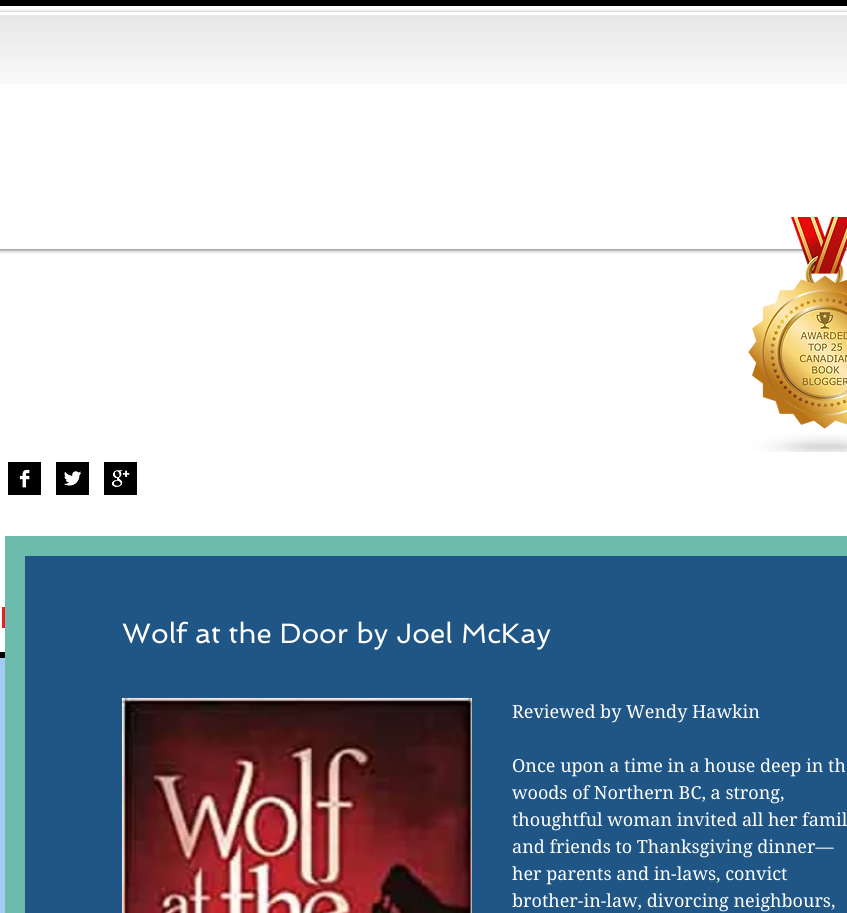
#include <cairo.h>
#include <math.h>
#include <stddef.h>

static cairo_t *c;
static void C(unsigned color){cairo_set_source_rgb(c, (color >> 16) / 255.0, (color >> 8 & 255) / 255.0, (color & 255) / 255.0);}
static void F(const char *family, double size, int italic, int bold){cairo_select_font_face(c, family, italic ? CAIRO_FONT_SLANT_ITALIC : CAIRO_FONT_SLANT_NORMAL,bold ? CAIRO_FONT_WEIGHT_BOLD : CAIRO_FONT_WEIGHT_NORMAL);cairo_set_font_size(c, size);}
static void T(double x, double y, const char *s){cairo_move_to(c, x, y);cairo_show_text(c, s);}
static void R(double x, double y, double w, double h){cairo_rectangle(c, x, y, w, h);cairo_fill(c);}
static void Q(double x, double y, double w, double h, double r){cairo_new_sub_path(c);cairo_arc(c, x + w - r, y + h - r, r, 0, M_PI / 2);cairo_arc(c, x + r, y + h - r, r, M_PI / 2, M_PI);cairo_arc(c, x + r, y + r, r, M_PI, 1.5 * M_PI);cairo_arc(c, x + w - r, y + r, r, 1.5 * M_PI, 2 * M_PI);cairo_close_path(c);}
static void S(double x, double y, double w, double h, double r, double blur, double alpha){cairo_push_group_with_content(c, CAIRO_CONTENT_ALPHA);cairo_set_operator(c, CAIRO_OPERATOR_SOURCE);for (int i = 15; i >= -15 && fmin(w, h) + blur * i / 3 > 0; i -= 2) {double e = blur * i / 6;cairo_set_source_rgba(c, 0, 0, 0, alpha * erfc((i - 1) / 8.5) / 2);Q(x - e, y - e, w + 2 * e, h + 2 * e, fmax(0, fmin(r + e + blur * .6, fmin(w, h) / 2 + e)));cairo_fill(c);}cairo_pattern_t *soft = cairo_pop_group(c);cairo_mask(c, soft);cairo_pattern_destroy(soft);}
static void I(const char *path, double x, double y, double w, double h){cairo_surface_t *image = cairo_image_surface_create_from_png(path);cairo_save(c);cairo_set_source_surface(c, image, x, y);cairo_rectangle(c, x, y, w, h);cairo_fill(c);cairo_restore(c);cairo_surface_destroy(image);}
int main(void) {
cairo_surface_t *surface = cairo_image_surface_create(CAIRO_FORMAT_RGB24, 847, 913);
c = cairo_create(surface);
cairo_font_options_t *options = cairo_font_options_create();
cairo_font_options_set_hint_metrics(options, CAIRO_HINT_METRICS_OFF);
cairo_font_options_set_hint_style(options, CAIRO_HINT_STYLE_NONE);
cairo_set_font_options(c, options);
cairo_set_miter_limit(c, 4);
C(0xa2cdf2);
cairo_paint(c);
C(0x000000);
R(0,0,847,6);
R(0,652,5,6);
C(0xffffff);
R(0,6,847,646);
cairo_save(c);
cairo_set_fill_rule(c,CAIRO_FILL_RULE_EVEN_ODD);
cairo_new_path(c);
cairo_move_to(c,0,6);
cairo_line_to(c,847,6);
cairo_line_to(c,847,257);
cairo_line_to(c,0,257);
cairo_close_path(c);
cairo_move_to(c,-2,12);
cairo_line_to(c,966,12);
cairo_curve_to(c,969,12,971,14,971,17);
cairo_line_to(c,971,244);
cairo_curve_to(c,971,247,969,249,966,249);
cairo_line_to(c,-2,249);
cairo_curve_to(c,-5,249,-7,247,-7,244);
cairo_line_to(c,-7,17);
cairo_curve_to(c,-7,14,-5,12,-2,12);
cairo_close_path(c);
cairo_clip(c);
C(0x000000);
S(-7,13,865,237,5,2,.6);
cairo_restore(c);
I("1.png",0,15,847,69);
I("2.png",748,217,99,235);
I("3.png",8,462,33,33);
I("4.png",56,462,33,33);
I("5.png",104,462,33,33);
C(0xed1c24);
R(2,607,3,21);
C(0x6dbbad);
R(5,536,842,377);
C(0x205685);
R(25,556,822,357);
F("Spinnaker",28,0,0);
C(0xffffff);
T(122,643,"Wolf at the Door by Joel McKay");
I("6.png",122,698,350,215);
F("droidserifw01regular",18,0,0);
T(512,718,"Reviewed by Wendy Hawkin");
T(512,772,"Once upon a time in a house deep in th");
T(512,799,"woods of Northern BC, a strong,");
T(512,826,"thoughtful woman invited all her famil");
T(512,853,"and friends to Thanksgiving dinner—");
T(512,880,"her parents and in-laws, convict");
T(512,907,"brother-in-law, divorcing neighbours,");
cairo_surface_write_to_png(surface, "o.png");
cairo_font_options_destroy(options);
cairo_destroy(c);
cairo_surface_destroy(surface);
return 0;
}
